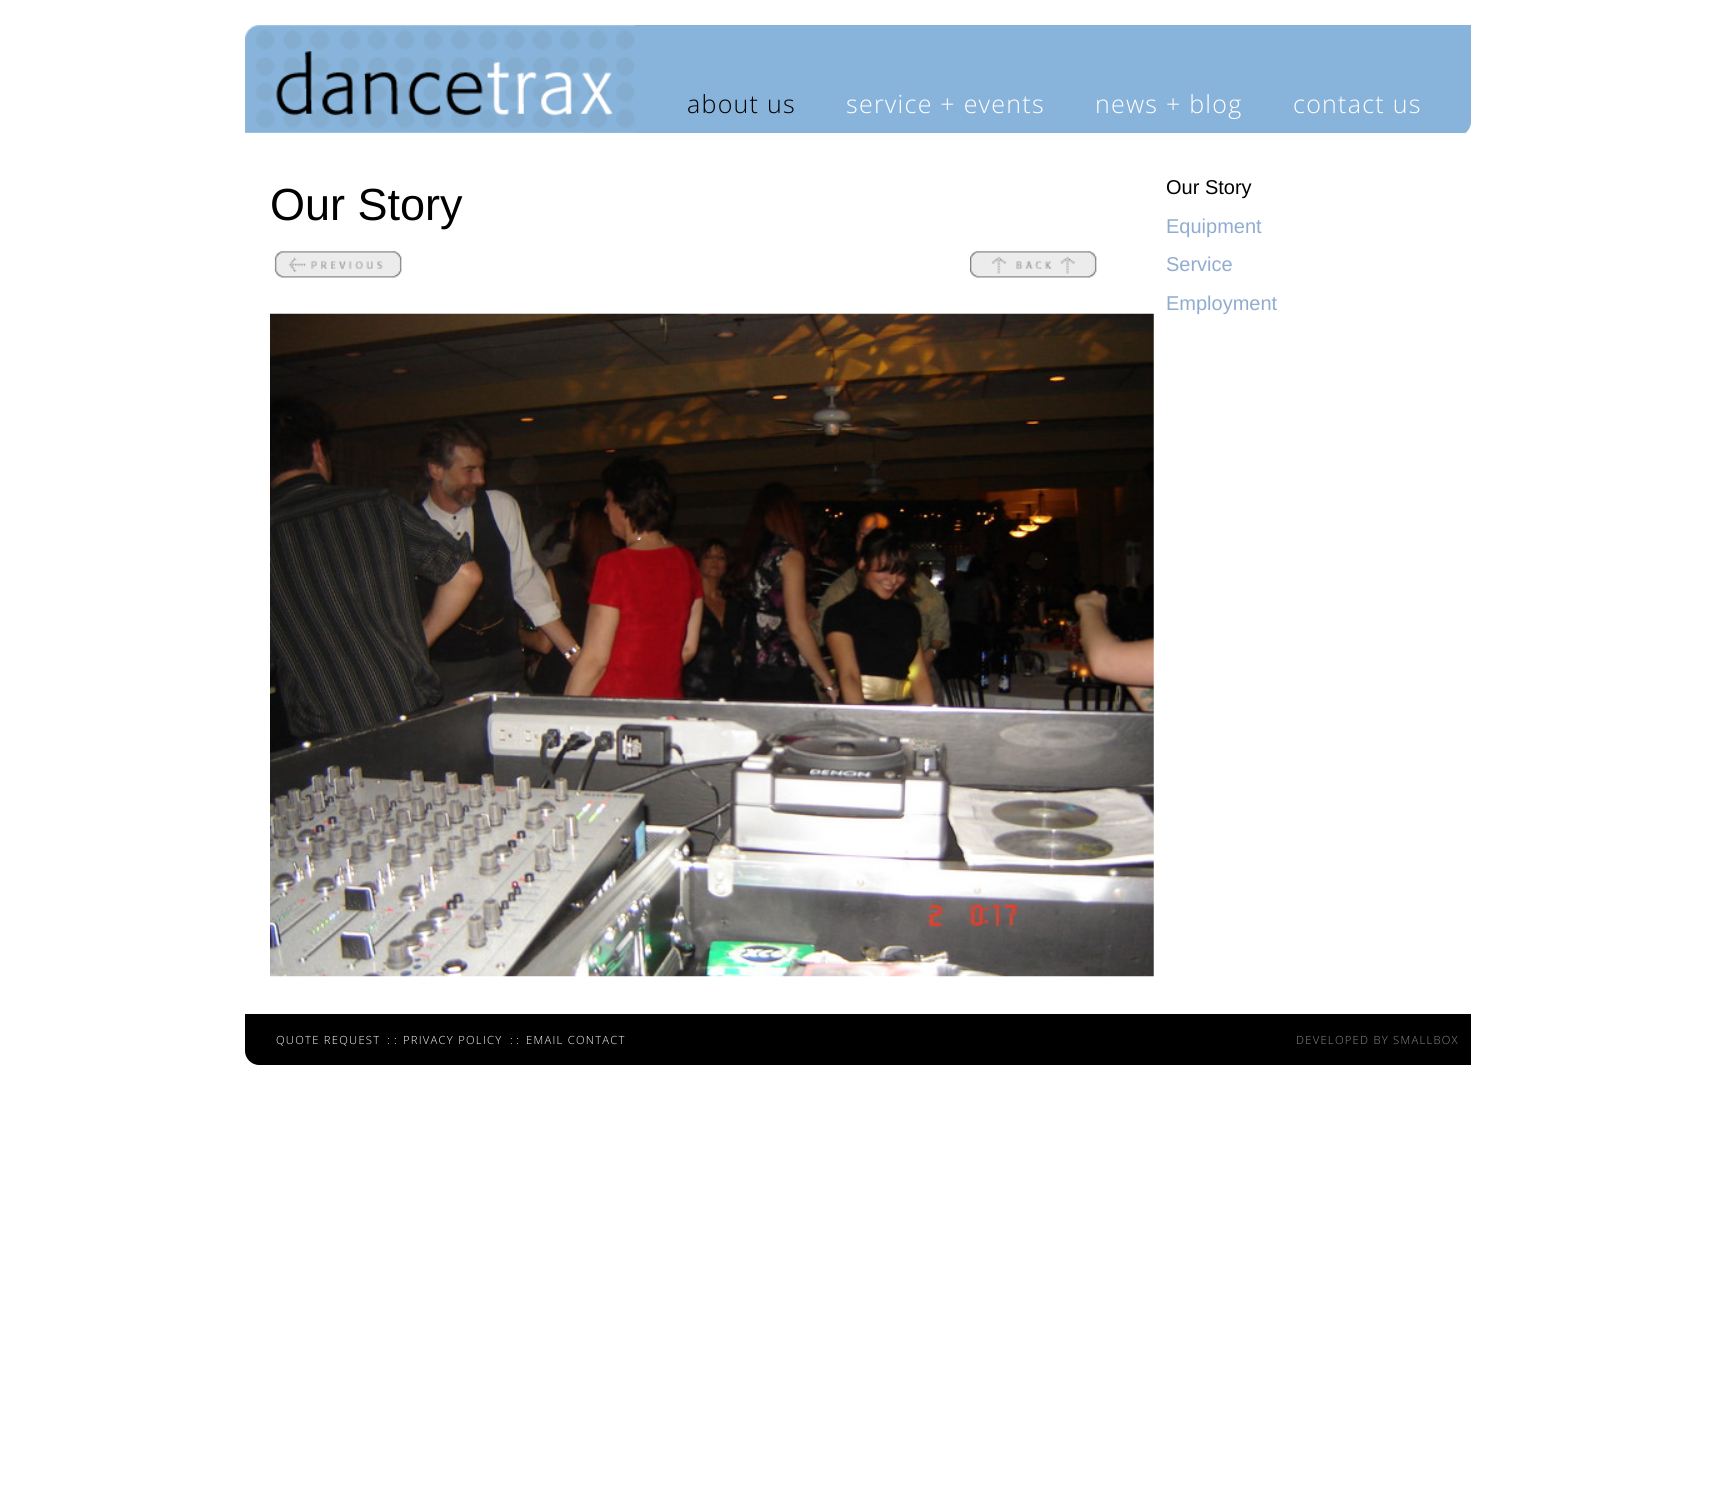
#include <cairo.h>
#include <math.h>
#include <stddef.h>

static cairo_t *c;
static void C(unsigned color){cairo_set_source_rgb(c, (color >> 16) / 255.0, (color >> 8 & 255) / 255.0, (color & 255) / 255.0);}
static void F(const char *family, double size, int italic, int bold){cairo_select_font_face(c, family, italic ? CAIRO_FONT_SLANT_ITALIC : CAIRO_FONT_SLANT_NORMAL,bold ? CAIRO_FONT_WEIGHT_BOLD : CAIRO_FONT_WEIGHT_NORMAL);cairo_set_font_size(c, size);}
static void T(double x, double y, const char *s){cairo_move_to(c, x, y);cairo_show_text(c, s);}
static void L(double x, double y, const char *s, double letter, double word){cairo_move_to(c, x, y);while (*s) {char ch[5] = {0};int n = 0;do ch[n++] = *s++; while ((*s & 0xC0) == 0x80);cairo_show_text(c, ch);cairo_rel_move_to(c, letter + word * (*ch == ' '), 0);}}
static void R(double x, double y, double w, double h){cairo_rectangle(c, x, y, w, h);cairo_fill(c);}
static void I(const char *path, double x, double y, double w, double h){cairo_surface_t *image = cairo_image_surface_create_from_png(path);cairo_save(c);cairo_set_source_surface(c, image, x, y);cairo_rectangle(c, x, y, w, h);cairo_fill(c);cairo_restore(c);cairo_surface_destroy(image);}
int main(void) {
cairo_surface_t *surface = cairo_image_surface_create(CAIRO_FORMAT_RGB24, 1716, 1508);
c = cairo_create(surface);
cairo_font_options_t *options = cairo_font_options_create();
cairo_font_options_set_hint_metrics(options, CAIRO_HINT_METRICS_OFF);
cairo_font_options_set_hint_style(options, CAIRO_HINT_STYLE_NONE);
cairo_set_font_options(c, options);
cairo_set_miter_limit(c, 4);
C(0xffffff);
cairo_paint(c);
C(0x88b3da);
cairo_new_path(c);
cairo_move_to(c,259,25);
cairo_line_to(c,1471,25);
cairo_line_to(c,1471,122);
cairo_curve_to(c,1471,129.5,1464.5,136,1457,136);
cairo_line_to(c,245,136);
cairo_line_to(c,245,39);
cairo_curve_to(c,245,31.5,251.5,25,259,25);
cairo_close_path(c);
cairo_fill(c);
C(0xffffff);
R(245,133,1220,3);
I("1.png",245,25,390,108);
F("Open Sans Light",25,0,0);
C(0x000000);
L(687,113,"about us",1.25,0);
C(0xffffff);
L(846,113,"service + events",1.25,0);
L(1095,113,"news + blog",1.25,0);
L(1293,113,"contact us",1.25,0);
F("Liberation Sans",45,0,0);
C(0x000000);
T(270,220,"Our Story");
I("2.png",274,251,128,27);
I("3.png",970,251,127,27);
I("4.png",270,313,884,664);
F("Liberation Sans",20,0,0);
T(1166,194,"Our Story");
C(0x90acd0);
T(1166,233,"Equipment");
T(1166,271,"Service");
T(1166,310,"Employment");
C(0x000000);
cairo_new_path(c);
cairo_move_to(c,245,1014);
cairo_line_to(c,1471,1014);
cairo_line_to(c,1471,1065);
cairo_line_to(c,259,1065);
cairo_curve_to(c,251.5,1065,245,1058.5,245,1051);
cairo_close_path(c);
cairo_fill(c);
F("Open Sans Light",11.25,0,0);
C(0xffffff);
L(276,1044,"QUOTE REQUEST",1.25,0);
L(387,1044,":",1.25,0);
L(394,1044,":",1.25,0);
L(403,1044,"PRIVACY POLICY",1.25,0);
L(510,1044,":",1.25,0);
L(516,1044,":",1.25,0);
L(526,1044,"EMAIL CONTACT",1.25,0);
C(0x88898b);
L(1296,1044,"DEVELOPED BY SMALLBOX",1.25,0);
cairo_surface_write_to_png(surface, "o.png");
cairo_font_options_destroy(options);
cairo_destroy(c);
cairo_surface_destroy(surface);
return 0;
}
